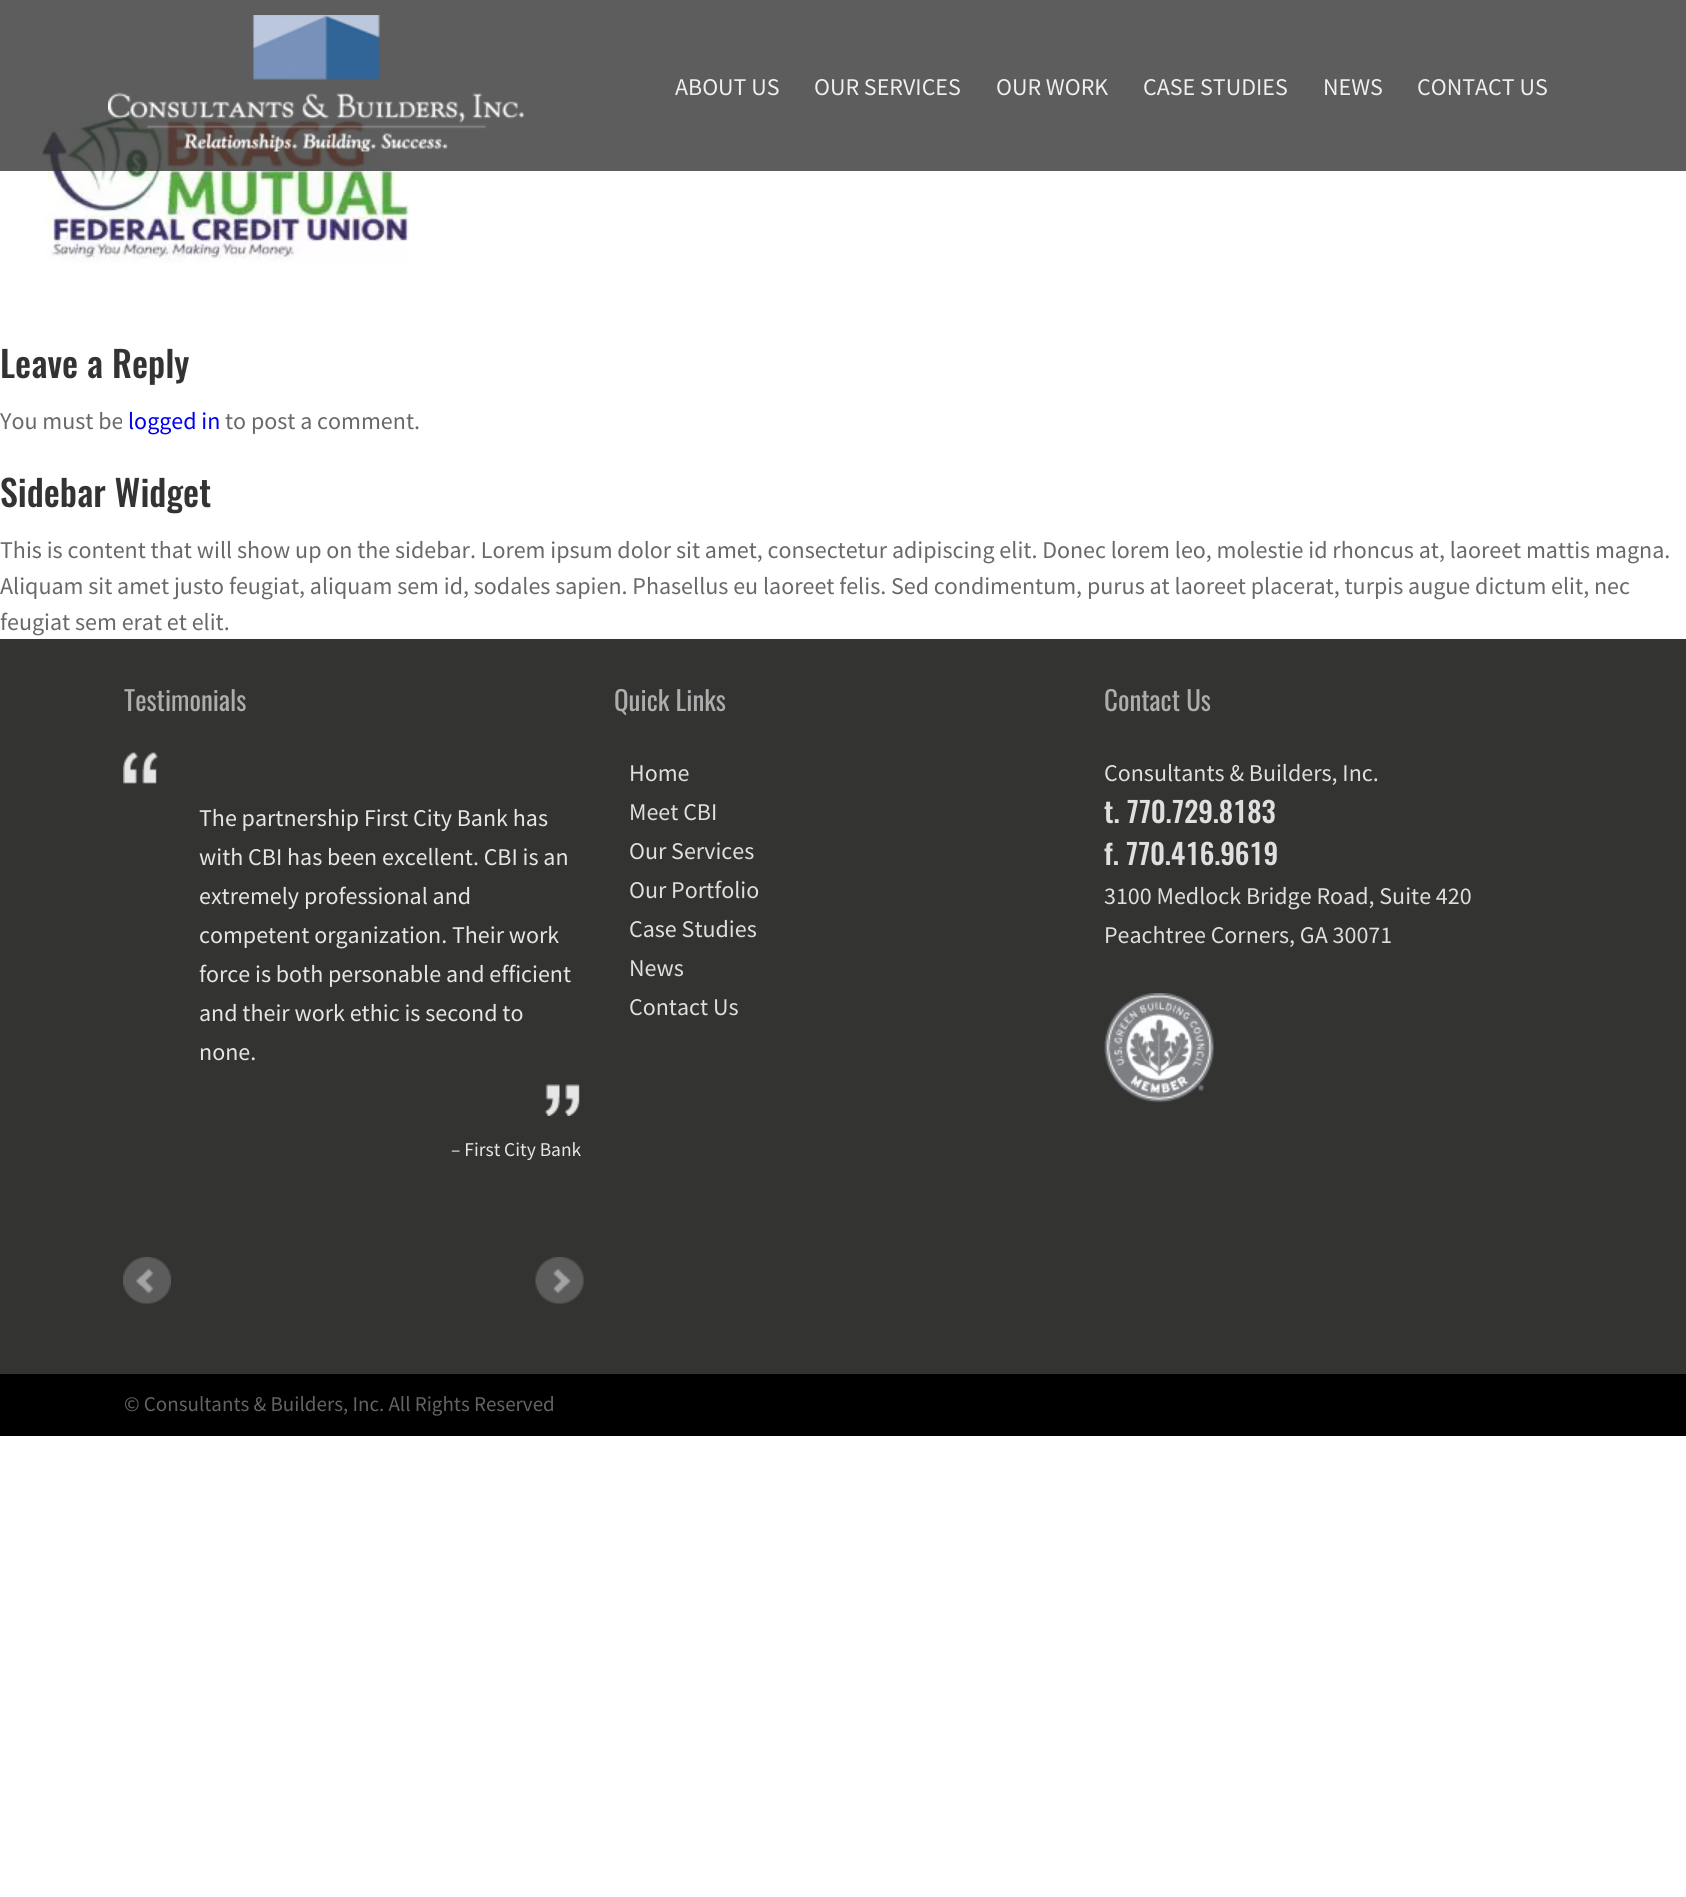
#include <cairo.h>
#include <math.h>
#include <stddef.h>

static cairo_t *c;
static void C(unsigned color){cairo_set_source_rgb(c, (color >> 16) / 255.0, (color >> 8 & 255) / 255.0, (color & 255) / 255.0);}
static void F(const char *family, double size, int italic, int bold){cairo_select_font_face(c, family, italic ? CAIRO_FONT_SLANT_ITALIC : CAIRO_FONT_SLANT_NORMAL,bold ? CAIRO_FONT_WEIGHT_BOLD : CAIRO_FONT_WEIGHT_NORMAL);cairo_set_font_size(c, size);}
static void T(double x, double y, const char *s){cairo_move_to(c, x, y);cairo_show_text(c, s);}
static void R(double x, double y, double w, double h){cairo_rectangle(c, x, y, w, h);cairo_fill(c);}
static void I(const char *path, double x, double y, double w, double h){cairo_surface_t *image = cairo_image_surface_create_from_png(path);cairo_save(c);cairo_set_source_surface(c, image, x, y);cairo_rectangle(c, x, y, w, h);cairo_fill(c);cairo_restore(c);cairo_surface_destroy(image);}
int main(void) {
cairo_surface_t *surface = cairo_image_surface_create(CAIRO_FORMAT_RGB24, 1686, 1897);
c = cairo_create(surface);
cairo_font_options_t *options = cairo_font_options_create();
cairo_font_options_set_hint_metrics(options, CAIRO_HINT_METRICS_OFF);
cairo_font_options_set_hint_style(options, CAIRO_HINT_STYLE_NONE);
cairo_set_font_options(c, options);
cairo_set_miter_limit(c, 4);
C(0xffffff);
cairo_paint(c);
I("2.png",41,110,369,153);
cairo_set_source_rgba(c,0.2,0.2,0.2,0.79);
R(0,0,1686,171);
I("1.png",108,15,416,137);
F("Source Sans Pro",24,0,0);
C(0xf0eeee);
T(675,95,"ABOUT US");
T(814,95,"OUR SERVICES");
T(996,95,"OUR WORK");
T(1143,95,"CASE STUDIES");
T(1323,95,"NEWS");
T(1417,95,"CONTACT US");
F("Oswald Medium",36,0,0);
C(0x333333);
T(0,378,"Leave a Reply");
F("Source Sans Pro",24,0,0);
C(0x696969);
T(0,429,"You must be");
C(0x0000ee);
T(128,429,"logged in");
C(0x696969);
T(225,429,"to post a comment.");
F("Oswald Medium",36,0,0);
C(0x333333);
T(0,507,"Sidebar Widget");
F("Source Sans Pro",24,0,0);
C(0x696969);
T(0,558,"This is content that will show up on the sidebar. Lorem ipsum dolor sit amet, consectetur adipiscing elit. Donec lorem leo, molestie id rhoncus at, laoreet mattis magna.");
T(0,594,"Aliquam sit amet justo feugiat, aliquam sem id, sodales sapien. Phasellus eu laoreet felis. Sed condimentum, purus at laoreet placerat, turpis augue dictum elit, nec");
T(0,630,"feugiat sem erat et elit.");
C(0x333332);
R(0,639,1686,735);
F("Oswald",27,0,0);
C(0xaeadad);
T(124,711,"Testimonials");
I("3.png",123,752,35,32);
I("4.png",544,1084,36,32);
F("Source Sans Pro",24,0,0);
C(0xe6e6e6);
T(199,826,"The partnership First City Bank has");
T(199,865,"with CBI has been excellent. CBI is an");
T(199,904,"extremely professional and");
T(199,943,"competent organization. Their work");
T(199,982,"force is both personable and efficient");
T(199,1021,"and their work ethic is second to");
T(199,1060,"none.");
F("Source Sans Pro",19.5,0,0);
T(451,1156,"– First City Bank");
I("5.png",123,1257,48,47);
I("6.png",535,1257,49,47);
F("Oswald",27,0,0);
C(0xaeadad);
T(614,711,"Quick Links");
F("Source Sans Pro",24,0,0);
C(0xdfdfdf);
T(629,781,"Home");
T(629,820,"Meet CBI");
T(629,859,"Our Services");
T(629,898,"Our Portfolio");
T(629,937,"Case Studies");
T(629,976,"News");
T(629,1015,"Contact Us");
F("Oswald",27,0,0);
C(0xaeadad);
T(1104,711,"Contact Us");
F("Source Sans Pro",24,0,0);
C(0xdfdfdf);
T(1104,781,"Consultants & Builders, Inc.");
F("Oswald Medium",28.5,0,0);
T(1104,823,"t. 770.729.8183");
T(1104,865,"f. 770.416.9619");
F("Source Sans Pro",24,0,0);
T(1104,904,"3100 Medlock Bridge Road, Suite 420");
T(1104,943,"Peachtree Corners, GA 30071");
I("7.png",1104,993,110,110);
C(0x000000);
R(0,1374,1686,62);
F("Source Sans Pro",21,0,0);
C(0x646363);
T(124,1411,"© Consultants & Builders, Inc. All Rights Reserved");
cairo_surface_write_to_png(surface, "o.png");
cairo_font_options_destroy(options);
cairo_destroy(c);
cairo_surface_destroy(surface);
return 0;
}
